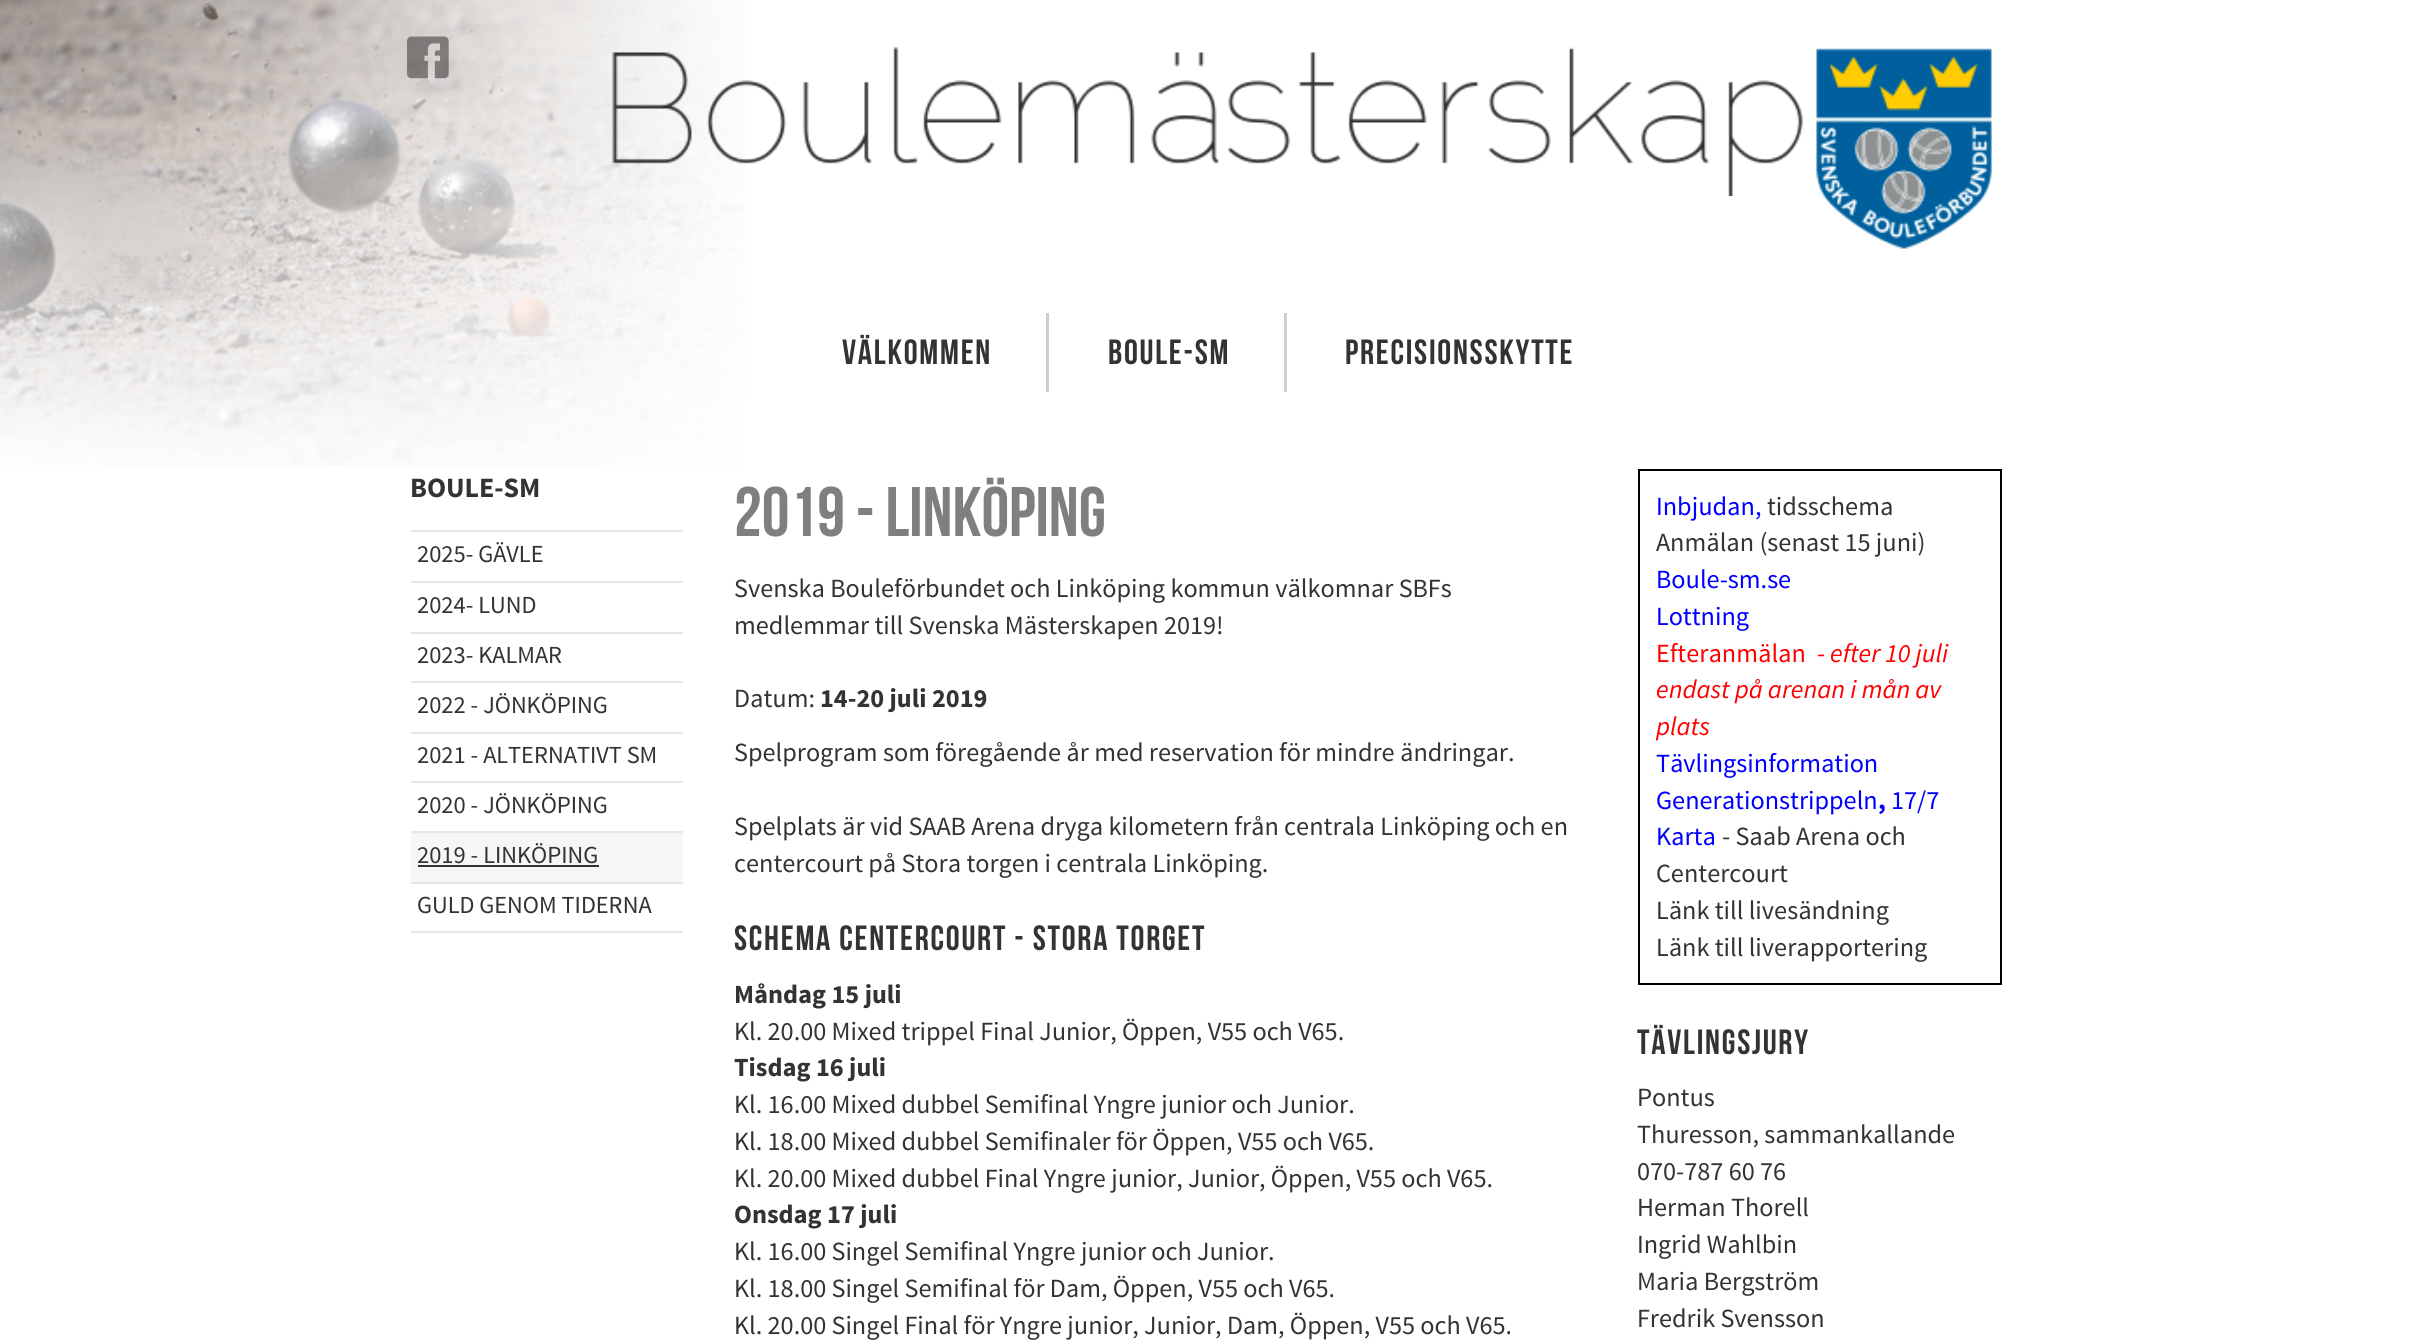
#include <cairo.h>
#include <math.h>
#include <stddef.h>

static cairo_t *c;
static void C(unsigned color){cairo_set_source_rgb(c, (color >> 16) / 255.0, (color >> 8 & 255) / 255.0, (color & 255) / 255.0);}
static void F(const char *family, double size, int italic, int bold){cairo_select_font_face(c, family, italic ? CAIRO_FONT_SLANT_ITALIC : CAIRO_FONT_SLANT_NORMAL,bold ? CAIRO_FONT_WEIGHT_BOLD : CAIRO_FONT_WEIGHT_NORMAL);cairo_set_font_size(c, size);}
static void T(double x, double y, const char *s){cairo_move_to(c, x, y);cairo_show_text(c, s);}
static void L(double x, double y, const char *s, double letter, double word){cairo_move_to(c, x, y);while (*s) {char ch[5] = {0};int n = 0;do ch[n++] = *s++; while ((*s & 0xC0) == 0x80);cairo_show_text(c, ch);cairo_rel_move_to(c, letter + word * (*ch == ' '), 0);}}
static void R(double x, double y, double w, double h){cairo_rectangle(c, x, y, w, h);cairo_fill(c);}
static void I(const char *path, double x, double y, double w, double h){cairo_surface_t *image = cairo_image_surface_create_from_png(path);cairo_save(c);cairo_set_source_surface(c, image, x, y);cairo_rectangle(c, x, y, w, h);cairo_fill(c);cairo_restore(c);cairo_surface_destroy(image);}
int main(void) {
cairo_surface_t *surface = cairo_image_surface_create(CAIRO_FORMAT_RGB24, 2413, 1344);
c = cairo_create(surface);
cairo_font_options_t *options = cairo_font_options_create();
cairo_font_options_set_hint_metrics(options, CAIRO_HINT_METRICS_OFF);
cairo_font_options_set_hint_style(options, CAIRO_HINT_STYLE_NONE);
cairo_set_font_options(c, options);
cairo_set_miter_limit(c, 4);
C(0xffffff);
cairo_paint(c);
I("1.png",0,0,745,466);
I("2.png",1816,48,176,201);
I("3.png",407,36,42,43);
I("4.png",612,47,1191,149);
F("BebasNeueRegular",35,0,0);
C(0x333333);
L(842,364,"VÄLKOMMEN",1.75,0);
C(0xcecece);
R(1046,313,3,79);
C(0x333333);
L(1108,364,"BOULE-SM",1.75,0);
C(0xcecece);
R(1284,313,3,79);
C(0x333333);
L(1345,364,"PRECISIONSSKYTTE",1.75,0);
F("Source Sans Pro",28,0,1);
T(410,497,"BOULE-SM");
C(0xe6e6e6);
R(411,530,272,2);
R(411,581,272,2);
F("Source Sans Pro",24.5,0,0);
C(0x333333);
T(417,562,"2025- GÄVLE");
C(0xe6e6e6);
R(411,632,272,2);
C(0x333333);
T(417,613,"2024- LUND");
C(0xe6e6e6);
R(411,681,272,2);
C(0x333333);
T(417,663,"2023- KALMAR");
C(0xe6e6e6);
R(411,732,272,2);
C(0x333333);
T(417,713,"2022 - JÖNKÖPING");
C(0xe6e6e6);
R(411,781,272,2);
C(0x333333);
T(417,763,"2021 - ALTERNATIVT SM");
C(0xe6e6e6);
R(411,831,272,2);
C(0x333333);
T(417,813,"2020 - JÖNKÖPING");
C(0xe6e6e6);
R(411,882,272,2);
C(0xf6f6f6);
R(411,833,272,49);
C(0x333333);
T(417,863,"2019 - LINKÖPING");
R(418,865,181,2);
C(0xe6e6e6);
R(411,931,272,2);
C(0x333333);
T(417,913,"GULD GENOM TIDERNA");
F("BebasNeueRegular",70,0,0);
C(0x807e80);
T(734,536,"2019 - Linköping");
F("Source Sans Pro",26.25,0,0);
C(0x333333);
T(734,597,"Svenska Bouleförbundet och Linköping kommun välkomnar SBFs");
T(734,634,"medlemmar till Svenska Mästerskapen 2019!");
T(734,707,"Datum:");
F("Source Sans Pro",26.25,0,1);
T(820,707,"14-20 juli 2019");
F("Source Sans Pro",26.25,0,0);
T(734,761,"Spelprogram som föregående år med reservation för mindre ändringar.");
T(734,835,"Spelplats är vid SAAB Arena dryga kilometern från centrala Linköping och en");
T(734,872,"centercourt på Stora torgen i centrala Linköping.");
F("BebasNeueRegular",35,0,0);
L(734,950,"SChema CenterCourt - Stora torget",1.75,0);
F("Source Sans Pro",26.25,0,1);
T(734,1003,"Måndag 15 juli");
F("Source Sans Pro",26.25,0,0);
T(734,1040,"Kl. 20.00 Mixed trippel Final Junior, Öppen, V55 och V65.");
F("Source Sans Pro",26.25,0,1);
T(734,1076,"Tisdag 16 juli");
F("Source Sans Pro",26.25,0,0);
T(734,1113,"Kl. 16.00 Mixed dubbel Semifinal Yngre junior och Junior.");
T(734,1150,"Kl. 18.00 Mixed dubbel Semifinaler för Öppen, V55 och V65.");
T(734,1187,"Kl. 20.00 Mixed dubbel Final Yngre junior, Junior, Öppen, V55 och V65.");
F("Source Sans Pro",26.25,0,1);
T(734,1223,"Onsdag 17 juli");
F("Source Sans Pro",26.25,0,0);
T(734,1260,"Kl. 16.00 Singel Semifinal Yngre junior och Junior.");
T(734,1297,"Kl. 18.00 Singel Semifinal för Dam, Öppen, V55 och V65.");
T(734,1334,"Kl. 20.00 Singel Final för Yngre junior, Junior, Dam, Öppen, V55 och V65.");
cairo_rectangle(c,1639,470,362,514);
C(0x000000);
cairo_stroke(c);
C(0x0000ff);
T(1656,515,"Inbjudan,");
C(0x333333);
T(1767,515,"tidsschema");
T(1656,551,"Anmälan (senast 15 juni)");
C(0x0000ff);
T(1656,588,"Boule-sm.se");
T(1656,625,"Lottning");
C(0xff0000);
T(1656,662,"Efteranmälan");
T(1817,662,"-");
F("Source Sans Pro",26.25,1,0);
T(1830,662,"efter 10 juli");
T(1656,698,"endast på arenan i mån av");
T(1656,735,"plats");
F("Source Sans Pro",26.25,0,0);
C(0x0000ff);
T(1656,772,"Tävlingsinformation");
T(1656,809,"Generationstrippeln");
F("Source Sans Pro",26.25,0,1);
T(1878,809,",");
F("Source Sans Pro",26.25,0,0);
T(1891,809,"17/7");
T(1656,845,"Karta");
C(0x333333);
T(1722,845,"- Saab Arena och");
T(1656,882,"Centercourt");
T(1656,919,"Länk till livesändning");
T(1656,956,"Länk till liverapportering");
F("BebasNeueRegular",35,0,0);
L(1637,1054,"Tävlingsjury",1.75,0);
F("Source Sans Pro",26.25,0,0);
T(1637,1106,"Pontus");
T(1637,1143,"Thuresson, sammankallande");
T(1637,1180,"070-787 60 76");
T(1637,1216,"Herman Thorell");
T(1637,1253,"Ingrid Wahlbin");
T(1637,1290,"Maria Bergström");
T(1637,1327,"Fredrik Svensson");
cairo_surface_write_to_png(surface, "o.png");
cairo_font_options_destroy(options);
cairo_destroy(c);
cairo_surface_destroy(surface);
return 0;
}
